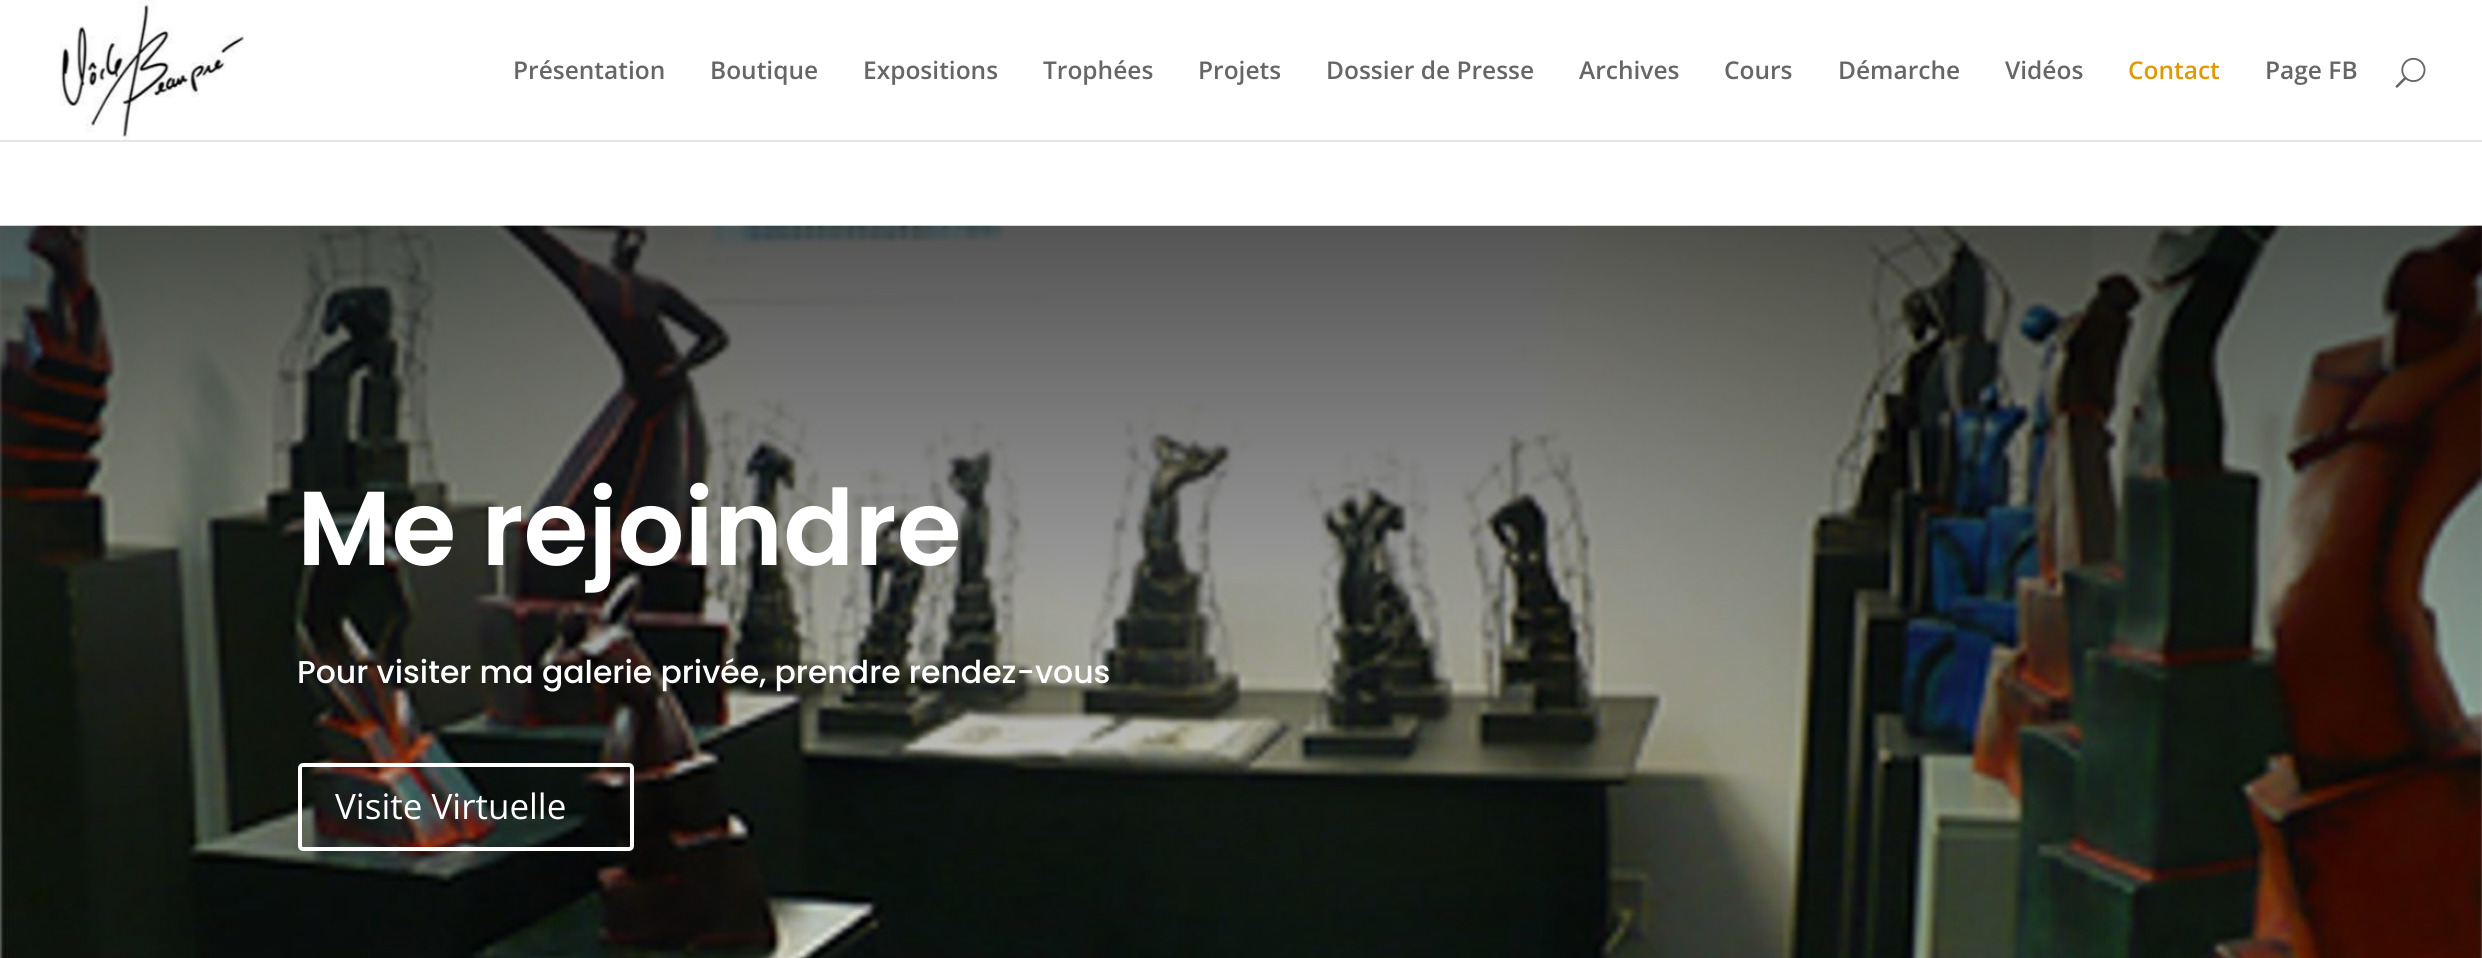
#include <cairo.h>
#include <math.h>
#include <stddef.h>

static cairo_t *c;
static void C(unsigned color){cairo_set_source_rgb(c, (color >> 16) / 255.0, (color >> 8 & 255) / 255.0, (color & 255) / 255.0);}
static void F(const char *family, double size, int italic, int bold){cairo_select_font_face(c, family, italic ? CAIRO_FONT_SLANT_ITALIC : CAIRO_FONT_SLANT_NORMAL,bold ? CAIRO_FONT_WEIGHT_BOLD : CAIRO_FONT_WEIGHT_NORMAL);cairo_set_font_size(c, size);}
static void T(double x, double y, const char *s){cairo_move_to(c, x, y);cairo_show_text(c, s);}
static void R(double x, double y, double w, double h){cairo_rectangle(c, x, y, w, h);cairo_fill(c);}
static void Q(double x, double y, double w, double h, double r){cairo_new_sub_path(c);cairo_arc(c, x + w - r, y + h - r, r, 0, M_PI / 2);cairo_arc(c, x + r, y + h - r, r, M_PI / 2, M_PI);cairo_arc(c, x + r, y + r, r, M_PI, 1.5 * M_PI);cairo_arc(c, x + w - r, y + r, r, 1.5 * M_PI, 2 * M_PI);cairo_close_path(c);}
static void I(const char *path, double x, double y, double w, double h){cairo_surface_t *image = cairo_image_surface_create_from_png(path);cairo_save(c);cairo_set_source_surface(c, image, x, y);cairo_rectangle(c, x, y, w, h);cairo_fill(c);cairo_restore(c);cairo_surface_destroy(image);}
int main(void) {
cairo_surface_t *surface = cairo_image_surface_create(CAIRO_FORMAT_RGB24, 2482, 958);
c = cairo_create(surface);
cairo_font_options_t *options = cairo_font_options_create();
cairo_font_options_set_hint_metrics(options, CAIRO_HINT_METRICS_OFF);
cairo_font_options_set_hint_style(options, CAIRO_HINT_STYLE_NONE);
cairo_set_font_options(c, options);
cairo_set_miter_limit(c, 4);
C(0xffffff);
cairo_paint(c);
C(0xe6e6e6);
R(0,140,2482,2);
I("1.png",59,0,185,140);
F("Open Sans SemiBold",24.5,0,0);
C(0x666666);
T(513,79,"Présentation");
T(710,79,"Boutique");
T(863,79,"Expositions");
T(1043,79,"Trophées");
T(1198,79,"Projets");
T(1326,79,"Dossier de Presse");
T(1579,79,"Archives");
T(1724,79,"Cours");
T(1838,79,"Démarche");
T(2005,79,"Vidéos");
C(0xe09900);
T(2128,79,"Contact");
C(0x666666);
T(2265,79,"Page FB");
I("2.png",2395,57,31,31);
I("3.png",0,225,2482,733);
F("Poppins SemiBold",105,0,0);
C(0xffffff);
T(297,565,"Me rejoindre");
F("Poppins Medium",31.5,0,0);
T(297,683,"Pour visiter ma galerie privée, prendre rendez-vous");
Q(300,765,332,84,3);
cairo_set_line_width(c,4);
cairo_stroke(c);
F("Open Sans",35,0,0);
T(335,819,"Visite Virtuelle");
cairo_surface_write_to_png(surface, "o.png");
cairo_font_options_destroy(options);
cairo_destroy(c);
cairo_surface_destroy(surface);
return 0;
}
